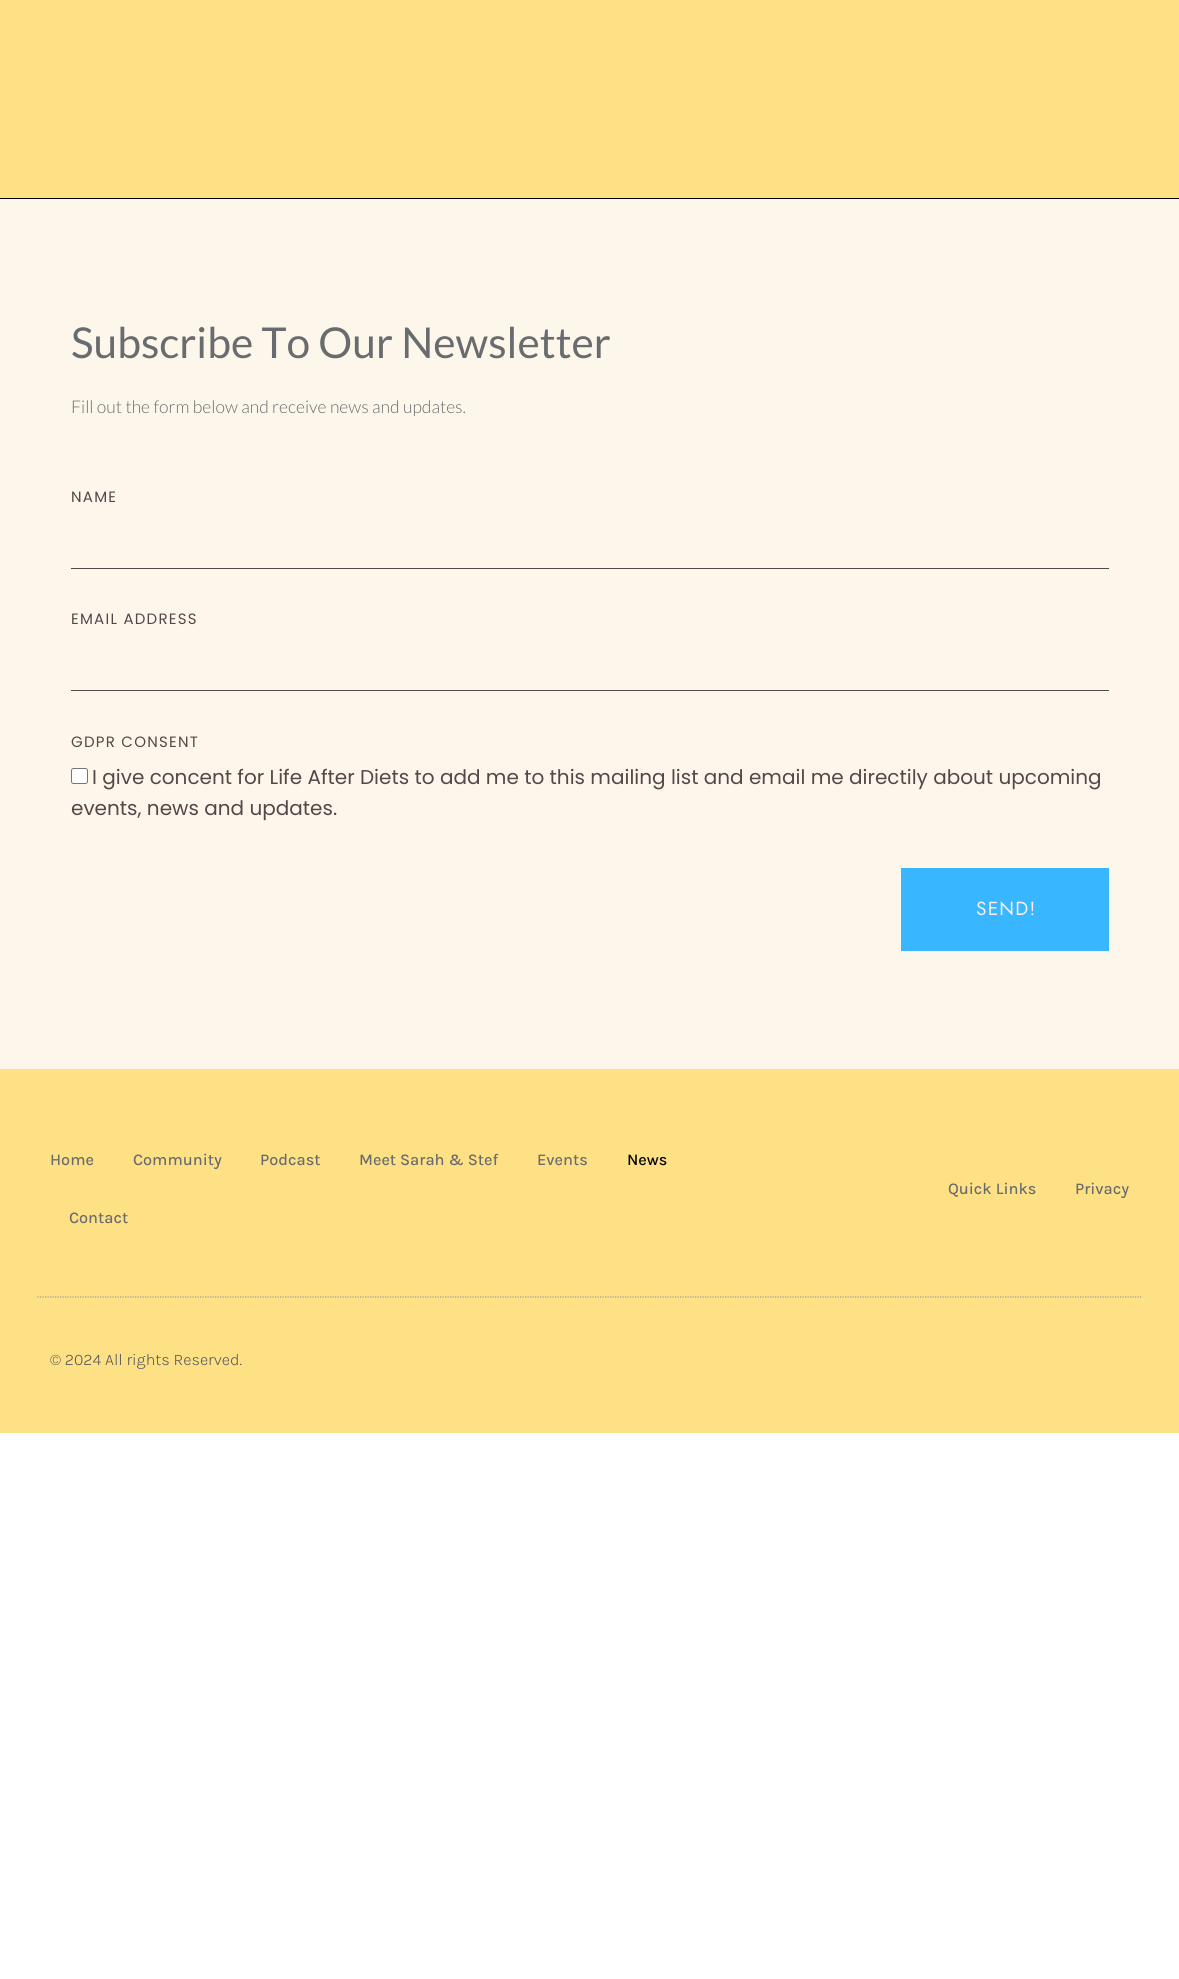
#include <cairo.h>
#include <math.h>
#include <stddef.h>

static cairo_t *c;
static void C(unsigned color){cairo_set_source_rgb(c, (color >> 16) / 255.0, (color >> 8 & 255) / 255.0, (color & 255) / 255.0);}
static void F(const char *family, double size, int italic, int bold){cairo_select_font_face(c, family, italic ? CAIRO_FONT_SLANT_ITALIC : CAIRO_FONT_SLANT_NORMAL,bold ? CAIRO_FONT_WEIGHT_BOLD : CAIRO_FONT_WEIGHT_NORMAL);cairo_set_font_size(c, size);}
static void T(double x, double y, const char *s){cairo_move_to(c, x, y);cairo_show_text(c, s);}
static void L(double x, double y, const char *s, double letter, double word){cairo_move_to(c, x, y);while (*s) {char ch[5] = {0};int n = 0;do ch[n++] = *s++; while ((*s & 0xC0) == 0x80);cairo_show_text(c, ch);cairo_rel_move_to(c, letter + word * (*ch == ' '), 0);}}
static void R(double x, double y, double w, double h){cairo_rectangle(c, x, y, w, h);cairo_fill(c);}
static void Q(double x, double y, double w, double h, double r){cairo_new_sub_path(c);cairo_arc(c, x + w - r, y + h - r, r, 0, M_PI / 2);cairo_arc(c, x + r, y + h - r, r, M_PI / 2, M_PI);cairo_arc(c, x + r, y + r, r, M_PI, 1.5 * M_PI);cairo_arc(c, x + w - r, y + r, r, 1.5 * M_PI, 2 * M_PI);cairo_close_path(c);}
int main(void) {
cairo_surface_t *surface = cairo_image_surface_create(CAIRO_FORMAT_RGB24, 1179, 1979);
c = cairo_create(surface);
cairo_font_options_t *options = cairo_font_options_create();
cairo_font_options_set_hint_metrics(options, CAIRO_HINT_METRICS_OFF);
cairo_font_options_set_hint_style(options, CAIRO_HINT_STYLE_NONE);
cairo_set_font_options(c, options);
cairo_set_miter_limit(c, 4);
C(0xffffff);
cairo_paint(c);
C(0xffe185);
R(0,0,1179,198);
C(0x000000);
R(0,198,1179,1);
C(0xfdf7eb);
R(0,199,1179,870);
F("Lato",42.5,0,0);
C(0x696c6e);
T(71,358,"Subscribe To Our Newsletter");
F("Lato Light",17.5,0,0);
T(71,413,"Fill out the form below and receive news and updates.");
F("Poppins",15,0,0);
C(0x534749);
L(71,502,"NAME",1.25,0);
R(71,568,1038,1);
L(71,624,"EMAIL ADDRESS",1.25,0);
R(71,690,1038,1);
L(71,747,"GDPR CONSENT",1.25,0);
C(0xffffff);
Q(71.5,768.5,16,15,2);
cairo_fill_preserve(c);
C(0x767676);
cairo_set_line_width(c,1);
cairo_stroke(c);
F("Poppins",20,0,0);
C(0x534749);
T(92,784,"I give concent for Life After Diets to add me to this mailing list and email me directily about upcoming");
T(71,815,"events, news and updates.");
C(0x38b6ff);
R(901,868,208,83);
F("Jost",19,0,0);
C(0xfaedef);
L(976,915,"SEND!",1.25,0);
C(0xffe185);
R(0,1069,1179,364);
cairo_new_path(c);
cairo_move_to(c,37.5,1297);
cairo_line_to(c,1142.5,1297);
C(0x9b9b9b);
cairo_set_line_width(c,1.2);
cairo_set_dash(c,(double[]){1.25,1.25},2,0);
cairo_stroke(c);
F("Karla Medium",16.25,0,0);
C(0x696c6e);
T(50,1165,"Home");
T(133,1165,"Community");
T(260,1165,"Podcast");
T(359,1165,"Meet Sarah & Stef");
T(537,1165,"Events");
C(0x000000);
T(627,1165,"News");
C(0x696c6e);
T(69,1223,"Contact");
T(948,1194,"Quick Links");
T(1075,1194,"Privacy");
F("Karla Light",16.25,0,0);
C(0x54595f);
T(50,1365,"© 2024 All rights Reserved.");
cairo_surface_write_to_png(surface, "o.png");
cairo_font_options_destroy(options);
cairo_destroy(c);
cairo_surface_destroy(surface);
return 0;
}
